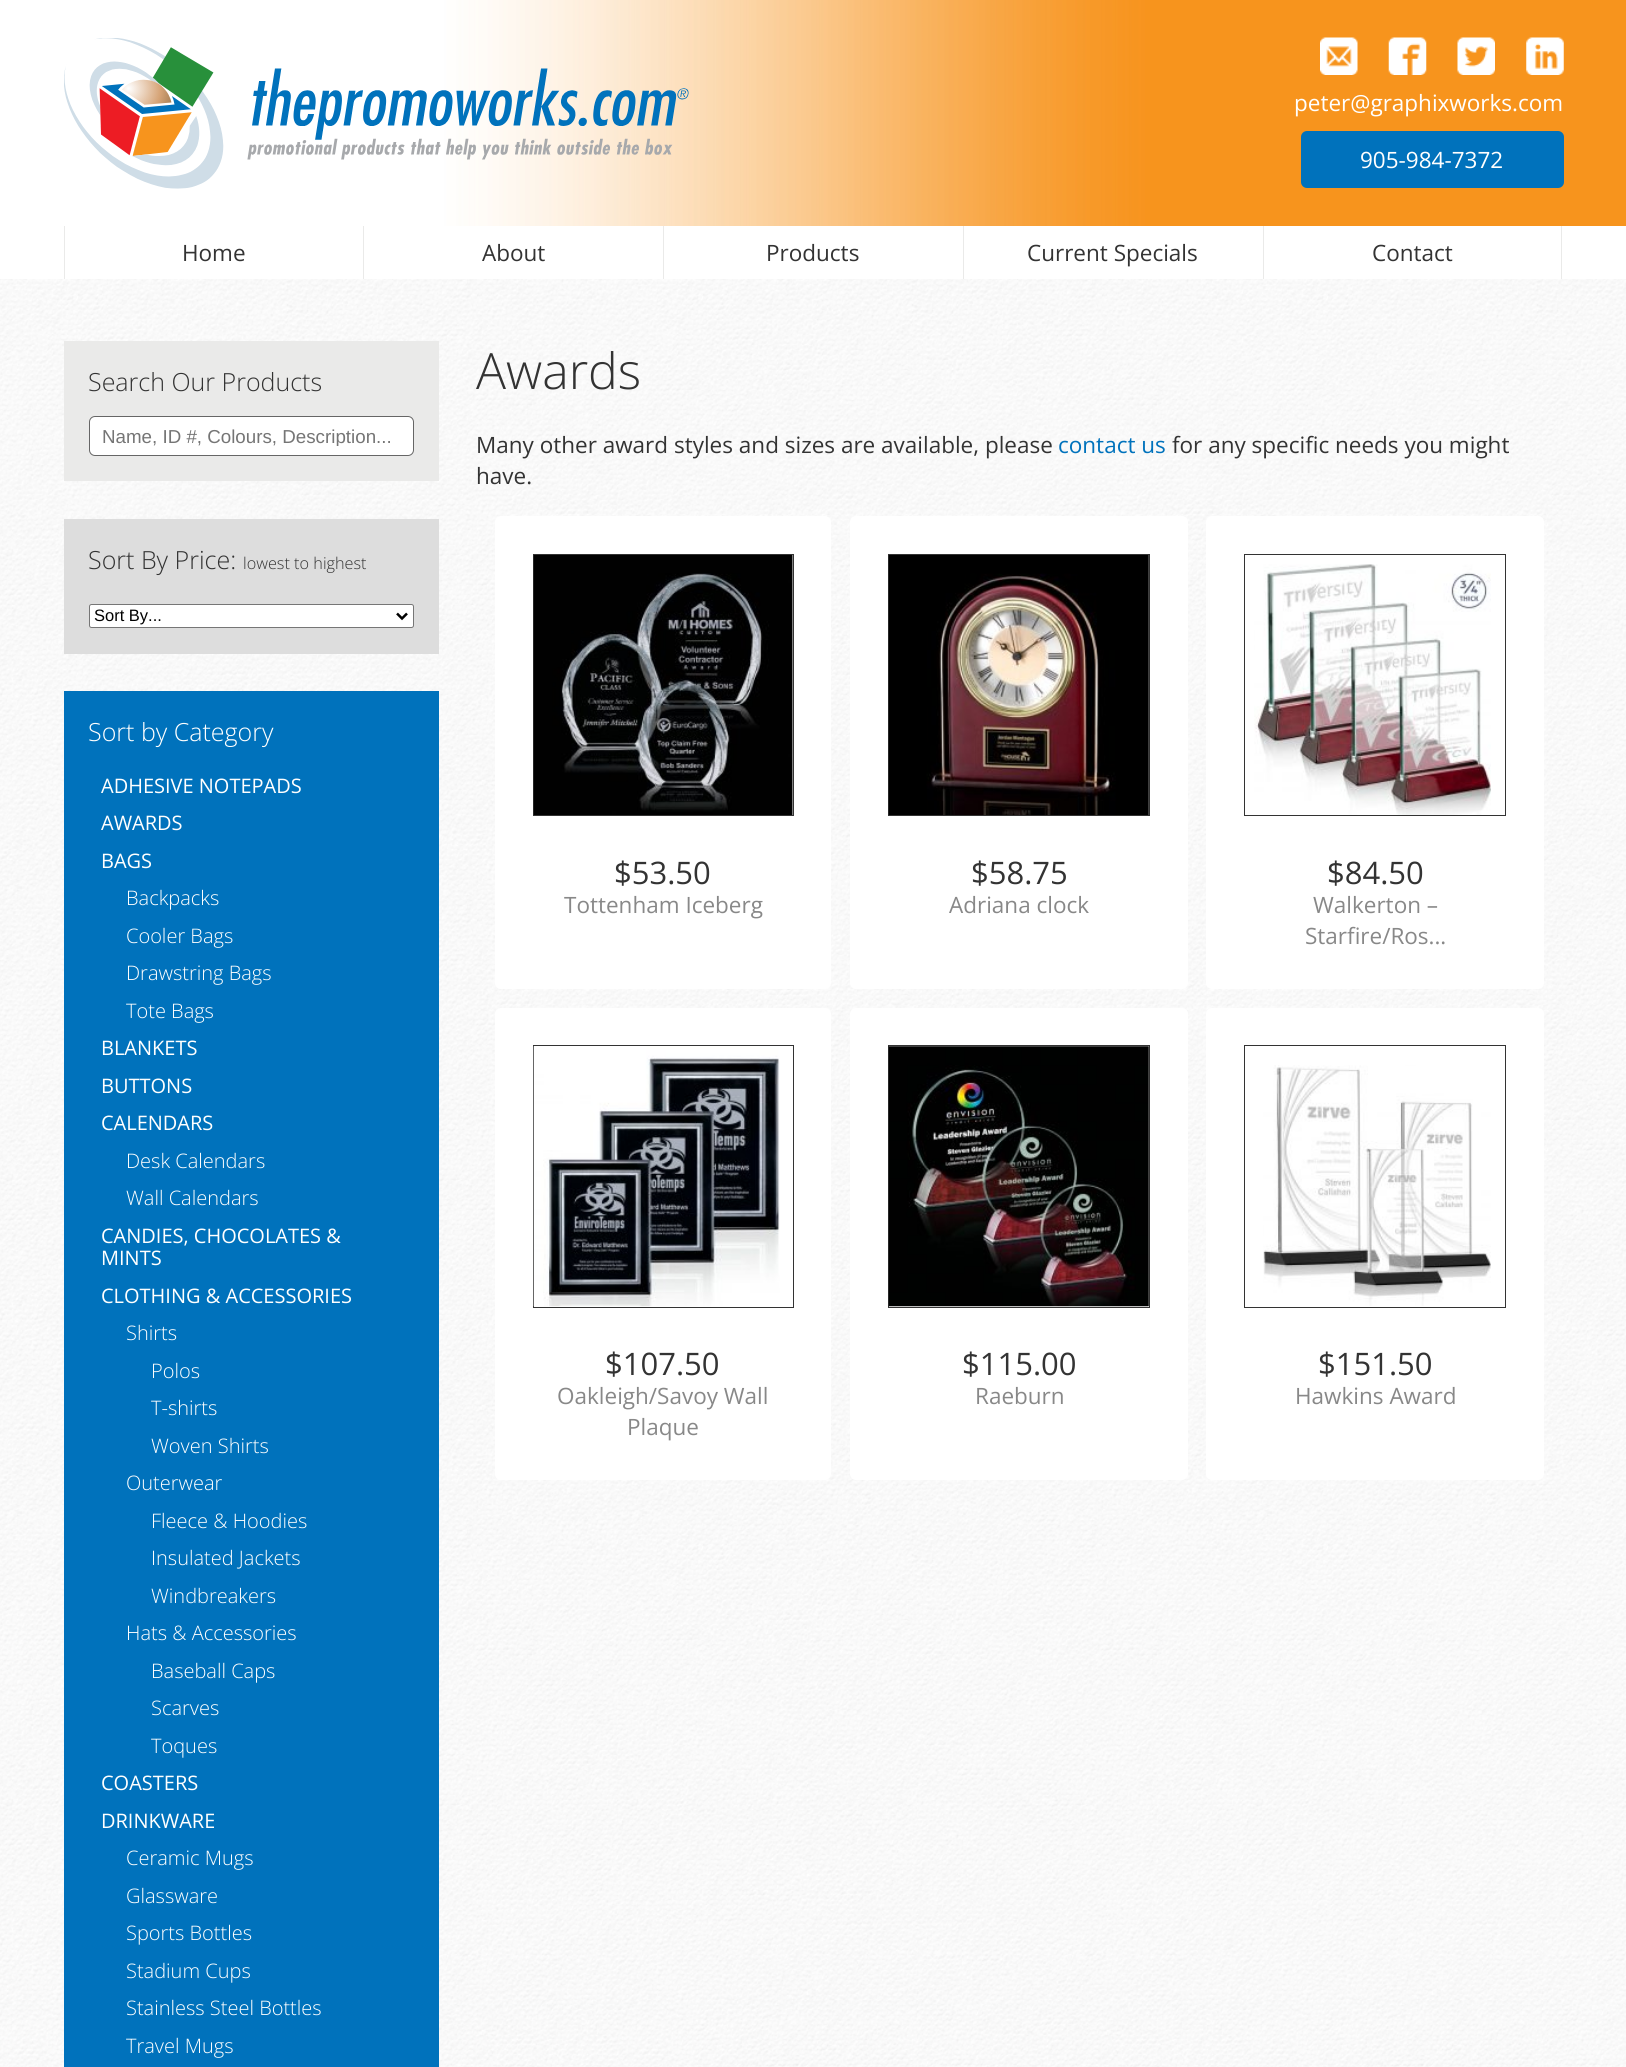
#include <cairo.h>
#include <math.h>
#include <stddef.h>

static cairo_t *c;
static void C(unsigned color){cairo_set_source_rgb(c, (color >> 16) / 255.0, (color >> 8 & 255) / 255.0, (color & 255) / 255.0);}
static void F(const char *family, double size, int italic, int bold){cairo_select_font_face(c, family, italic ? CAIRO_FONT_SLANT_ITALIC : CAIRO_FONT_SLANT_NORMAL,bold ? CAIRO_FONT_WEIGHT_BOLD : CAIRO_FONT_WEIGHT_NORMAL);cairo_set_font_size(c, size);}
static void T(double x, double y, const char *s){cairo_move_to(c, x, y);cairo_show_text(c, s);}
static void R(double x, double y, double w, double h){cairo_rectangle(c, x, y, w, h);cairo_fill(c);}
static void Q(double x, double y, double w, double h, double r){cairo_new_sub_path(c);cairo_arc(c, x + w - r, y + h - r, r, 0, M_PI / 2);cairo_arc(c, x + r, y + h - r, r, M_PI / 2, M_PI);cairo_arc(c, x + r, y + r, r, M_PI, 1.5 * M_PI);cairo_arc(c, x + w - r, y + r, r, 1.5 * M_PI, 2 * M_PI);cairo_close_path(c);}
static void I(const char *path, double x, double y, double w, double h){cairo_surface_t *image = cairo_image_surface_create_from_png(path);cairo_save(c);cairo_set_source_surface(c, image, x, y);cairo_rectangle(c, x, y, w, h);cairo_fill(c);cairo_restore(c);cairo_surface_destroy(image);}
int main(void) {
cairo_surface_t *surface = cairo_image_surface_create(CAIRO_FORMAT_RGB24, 1626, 2067);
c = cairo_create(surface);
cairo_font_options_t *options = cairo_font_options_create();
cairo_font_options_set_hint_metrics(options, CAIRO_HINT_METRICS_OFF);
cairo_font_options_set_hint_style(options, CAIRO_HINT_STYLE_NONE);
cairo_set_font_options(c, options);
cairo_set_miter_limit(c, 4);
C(0xffffff);
cairo_paint(c);
I("1.png",436,0,1190,226);
I("2.png",64,38,625,151);
I("3.png",1320,37,38,38);
I("4.png",1388,37,39,38);
I("5.png",1457,37,38,38);
I("6.png",1526,37,38,38);
F("Open Sans",22.5,0,0);
C(0xffffff);
T(1294,111,"peter@graphixworks.com");
C(0x0072bc);
Q(1301,131,263,57,6);
cairo_fill(c);
C(0xffffff);
T(1360,168,"905-984-7372");
C(0xeaeae9);
R(64,226,1,53);
R(363,226,1,53);
C(0x333333);
T(182,261,"Home");
C(0xeaeae9);
R(663,226,1,53);
C(0x333333);
T(482,261,"About");
C(0xeaeae9);
R(963,226,1,53);
C(0x333333);
T(766,261,"Products");
C(0xeaeae9);
R(1263,226,1,53);
C(0x333333);
T(1027,261,"Current Specials");
C(0xeaeae9);
R(1561,226,1,53);
C(0x333333);
T(1372,261,"Contact");
I("7.png",0,279,1626,1788);
C(0xeaeae9);
R(64,341,375,140);
F("Open Sans Light",25,0,0);
C(0x333333);
T(88,391,"Search Our Products");
C(0xffffff);
Q(89.5,416.5,324,39,5.5);
cairo_fill_preserve(c);
C(0x666666);
cairo_set_line_width(c,1);
cairo_stroke(c);
cairo_save(c);
cairo_rectangle(c,103,425,297,21);
cairo_clip(c);
F("Liberation Sans",18.75,0,0);
C(0x757575);
T(102,443,"Name, ID #, Colours, Description...");
cairo_restore(c);
C(0xdddddd);
R(64,519,375,135);
C(0x333333);
T(88,569,"Sort By Price:");
F("Open Sans Light",16.25,0,0);
T(243,569,"lowest to highest");
C(0xffffff);
Q(89.5,604.5,324,23,2);
cairo_fill_preserve(c);
C(0x767676);
cairo_stroke(c);
cairo_new_path(c);
cairo_move_to(c,397,613.5);
cairo_line_to(c,402,618.5);
cairo_line_to(c,407,613.5);
C(0x000000);
cairo_set_line_width(c,2.5);
cairo_stroke(c);
F("Liberation Sans",16.5,0,0);
T(94,621,"Sort By...");
C(0x0072bc);
R(64,691,375,1376);
F("Open Sans Light",25,0,0);
C(0xffffff);
T(88,741,"Sort by Category");
F("Open Sans",20,0,0);
T(101,793,"ADHESIVE NOTEPADS");
T(101,830,"AWARDS");
T(101,868,"BAGS");
F("Open Sans Light",20,0,0);
T(126,905,"Backpacks");
T(126,943,"Cooler Bags");
T(126,980,"Drawstring Bags");
T(126,1018,"Tote Bags");
F("Open Sans",20,0,0);
T(101,1055,"BLANKETS");
T(101,1093,"BUTTONS");
T(101,1130,"CALENDARS");
F("Open Sans Light",20,0,0);
T(126,1168,"Desk Calendars");
T(126,1205,"Wall Calendars");
F("Open Sans",20,0,0);
T(101,1243,"CANDIES, CHOCOLATES &");
T(101,1265,"MINTS");
T(101,1303,"CLOTHING & ACCESSORIES");
F("Open Sans Light",20,0,0);
T(126,1340,"Shirts");
T(151,1378,"Polos");
T(151,1415,"T-shirts");
T(151,1453,"Woven Shirts");
T(126,1490,"Outerwear");
T(151,1528,"Fleece & Hoodies");
T(151,1565,"Insulated Jackets");
T(151,1603,"Windbreakers");
T(126,1640,"Hats & Accessories");
T(151,1678,"Baseball Caps");
T(151,1715,"Scarves");
T(151,1753,"Toques");
F("Open Sans",20,0,0);
T(101,1790,"COASTERS");
T(101,1828,"DRINKWARE");
F("Open Sans Light",20,0,0);
T(126,1865,"Ceramic Mugs");
T(126,1903,"Glassware");
T(126,1940,"Sports Bottles");
T(126,1978,"Stadium Cups");
T(126,2015,"Stainless Steel Bottles");
T(126,2053,"Travel Mugs");
F("Open Sans Light",50,0,0);
C(0x333333);
T(476,389,"Awards");
F("Open Sans",22.5,0,0);
T(476,453,"Many other award styles and sizes are available, please");
C(0x0072bc);
T(1058,453,"contact us");
C(0x333333);
T(1172,453,"for any specific needs you might");
T(476,484,"have.");
C(0xffffff);
Q(495,516,336,473,6);
cairo_fill(c);
cairo_rectangle(c,533.5,554.5,260,261);
C(0x333333);
cairo_set_line_width(c,1);
cairo_stroke(c);
I("8.png",533,555,260,260);
F("Open Sans",31,0,0);
T(614,884,"$53.50");
F("Open Sans",22.5,0,0);
C(0x888888);
T(564,913,"Tottenham Iceberg");
C(0xffffff);
Q(850,516,338,473,6);
cairo_fill(c);
cairo_rectangle(c,888.5,554.5,261,261);
C(0x333333);
cairo_stroke(c);
I("9.png",888,555,261,260);
F("Open Sans",31,0,0);
T(971,884,"$58.75");
F("Open Sans",22.5,0,0);
C(0x888888);
T(949,913,"Adriana clock");
C(0xffffff);
Q(1206,516,338,473,6);
cairo_fill(c);
cairo_rectangle(c,1244.5,554.5,261,261);
C(0x333333);
cairo_stroke(c);
I("10.png",1254,564,237,251);
F("Open Sans",31,0,0);
T(1327,884,"$84.50");
F("Open Sans",22.5,0,0);
C(0x888888);
T(1313,913,"Walkerton –");
T(1305,944,"Starfire/Ros...");
C(0xffffff);
Q(495,1008,336,472,6);
cairo_fill(c);
cairo_rectangle(c,533.5,1045.5,260,262);
C(0x333333);
cairo_stroke(c);
I("11.png",533,1046,247,261);
F("Open Sans",31,0,0);
T(605,1375,"$107.50");
F("Open Sans",22.5,0,0);
C(0x888888);
T(557,1404,"Oakleigh/Savoy Wall");
T(627,1435,"Plaque");
C(0xffffff);
Q(850,1008,338,472,6);
cairo_fill(c);
cairo_rectangle(c,888.5,1045.5,261,262);
C(0x333333);
cairo_stroke(c);
I("12.png",888,1046,261,261);
F("Open Sans",31,0,0);
T(962,1375,"$115.00");
F("Open Sans",22.5,0,0);
C(0x888888);
T(975,1404,"Raeburn");
C(0xffffff);
Q(1206,1008,338,472,6);
cairo_fill(c);
cairo_rectangle(c,1244.5,1045.5,261,262);
C(0x333333);
cairo_stroke(c);
I("13.png",1263,1065,228,241);
F("Open Sans",31,0,0);
T(1318,1375,"$151.50");
F("Open Sans",22.5,0,0);
C(0x888888);
T(1295,1404,"Hawkins Award");
cairo_surface_write_to_png(surface, "o.png");
cairo_font_options_destroy(options);
cairo_destroy(c);
cairo_surface_destroy(surface);
return 0;
}
